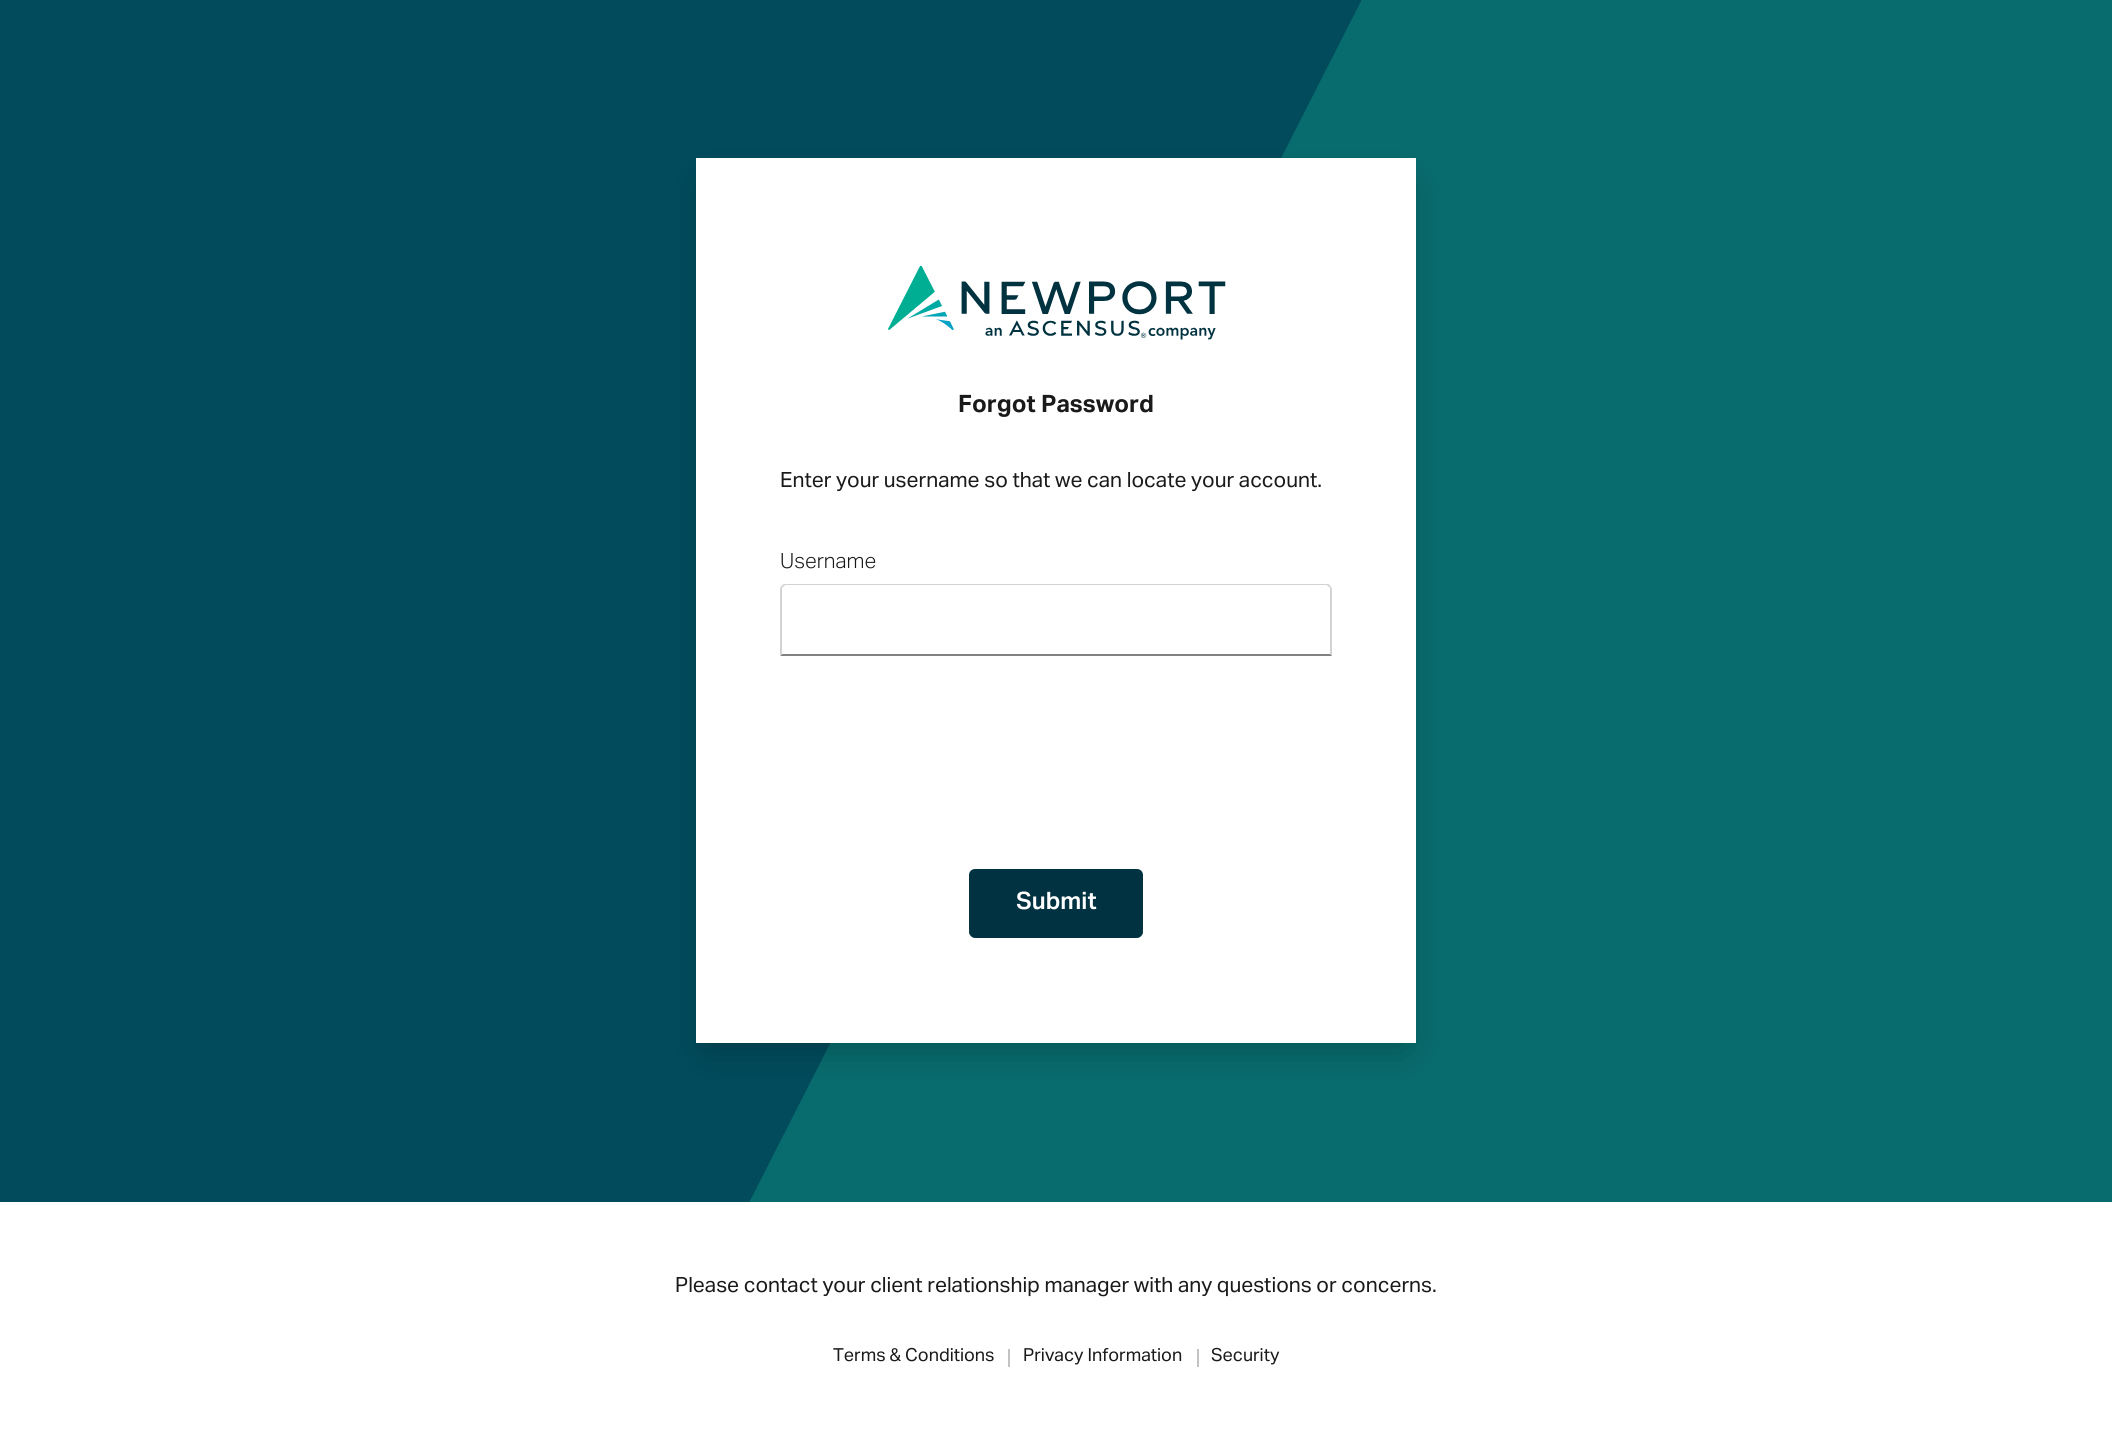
#include <cairo.h>
#include <math.h>
#include <stddef.h>

static cairo_t *c;
static void C(unsigned color){cairo_set_source_rgb(c, (color >> 16) / 255.0, (color >> 8 & 255) / 255.0, (color & 255) / 255.0);}
static void F(const char *family, double size, int italic, int bold){cairo_select_font_face(c, family, italic ? CAIRO_FONT_SLANT_ITALIC : CAIRO_FONT_SLANT_NORMAL,bold ? CAIRO_FONT_WEIGHT_BOLD : CAIRO_FONT_WEIGHT_NORMAL);cairo_set_font_size(c, size);}
static void T(double x, double y, const char *s){cairo_move_to(c, x, y);cairo_show_text(c, s);}
static void R(double x, double y, double w, double h){cairo_rectangle(c, x, y, w, h);cairo_fill(c);}
static void Q(double x, double y, double w, double h, double r){cairo_new_sub_path(c);cairo_arc(c, x + w - r, y + h - r, r, 0, M_PI / 2);cairo_arc(c, x + r, y + h - r, r, M_PI / 2, M_PI);cairo_arc(c, x + r, y + r, r, M_PI, 1.5 * M_PI);cairo_arc(c, x + w - r, y + r, r, 1.5 * M_PI, 2 * M_PI);cairo_close_path(c);}
static void S(double x, double y, double w, double h, double r, double blur, double alpha){cairo_push_group_with_content(c, CAIRO_CONTENT_ALPHA);cairo_set_operator(c, CAIRO_OPERATOR_SOURCE);for (int i = 15; i >= -15 && fmin(w, h) + blur * i / 3 > 0; i -= 2) {double e = blur * i / 6;cairo_set_source_rgba(c, 0, 0, 0, alpha * erfc((i - 1) / 8.5) / 2);Q(x - e, y - e, w + 2 * e, h + 2 * e, fmax(0, fmin(r + e + blur * .6, fmin(w, h) / 2 + e)));cairo_fill(c);}cairo_pattern_t *soft = cairo_pop_group(c);cairo_mask(c, soft);cairo_pattern_destroy(soft);}
static void I(const char *path, double x, double y, double w, double h){cairo_surface_t *image = cairo_image_surface_create_from_png(path);cairo_save(c);cairo_set_source_surface(c, image, x, y);cairo_rectangle(c, x, y, w, h);cairo_fill(c);cairo_restore(c);cairo_surface_destroy(image);}
int main(void) {
cairo_surface_t *surface = cairo_image_surface_create(CAIRO_FORMAT_RGB24, 2112, 1442);
c = cairo_create(surface);
cairo_font_options_t *options = cairo_font_options_create();
cairo_font_options_set_hint_metrics(options, CAIRO_HINT_METRICS_OFF);
cairo_font_options_set_hint_style(options, CAIRO_HINT_STYLE_NONE);
cairo_set_font_options(c, options);
cairo_set_miter_limit(c, 4);
C(0xffffff);
cairo_paint(c);
C(0x014b5c);
R(0,0,1362,1202);
cairo_save(c);
cairo_rectangle(c,0,0,2112,1202);
cairo_clip(c);
C(0x086b6d);
cairo_new_path(c);
cairo_move_to(c,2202,-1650);
cairo_line_to(c,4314,-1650);
cairo_line_to(c,2022,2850);
cairo_line_to(c,-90,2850);
cairo_close_path(c);
cairo_fill(c);
cairo_restore(c);
C(0x000000);
S(708,185,696,861,0,19,.27);
C(0xffffff);
R(696,158,720,885);
I("1.png",888,266,338,74);
F("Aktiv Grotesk",24,0,1);
C(0x1a1a1a);
T(958,412,"Forgot Password");
F("Aktiv Grotesk",21,0,0);
T(780,487,"Enter your username so that we can locate your account.");
F("Aktiv Grotesk Light",21,0,0);
T(780,568,"Username");
C(0xd3d3d3);
cairo_new_path(c);
cairo_move_to(c,786,584);
cairo_curve_to(c,785,584,783,584,782,585);
cairo_line_to(c,783,587);
cairo_curve_to(c,784,586,785,585,786,585);
cairo_line_to(c,1326,585);
cairo_curve_to(c,1327,585,1328,586,1329,587);
cairo_line_to(c,1330,585);
cairo_curve_to(c,1329,584,1327,584,1326,584);
cairo_close_path(c);
cairo_fill(c);
cairo_new_path(c);
cairo_move_to(c,1330,585);
cairo_line_to(c,1332,589);
cairo_line_to(c,1332,656);
cairo_line_to(c,1330,654);
cairo_line_to(c,1330,590);
cairo_curve_to(c,1330,589,1330,587,1329,587);
cairo_close_path(c);
cairo_fill(c);
C(0x828282);
cairo_new_path(c);
cairo_move_to(c,1332,656);
cairo_line_to(c,780,656);
cairo_line_to(c,782,654);
cairo_line_to(c,1330,654);
cairo_close_path(c);
cairo_fill(c);
C(0xd3d3d3);
cairo_new_path(c);
cairo_move_to(c,780,656);
cairo_line_to(c,782,654);
cairo_line_to(c,782,590);
cairo_curve_to(c,782,589,782,587,783,587);
cairo_line_to(c,782,585);
cairo_curve_to(c,781,586,780,588,780,590);
cairo_close_path(c);
cairo_fill(c);
C(0x003241);
cairo_new_path(c);
cairo_move_to(c,969,928);
cairo_line_to(c,969,932);
cairo_curve_to(c,969,935,972,938,975,938);
cairo_line_to(c,1137,938);
cairo_curve_to(c,1140,938,1143,935,1143,932);
cairo_line_to(c,1143,928);
cairo_curve_to(c,1143,932,1140,934,1137,934);
cairo_line_to(c,975,934);
cairo_curve_to(c,972,934,969,932,969,928);
cairo_close_path(c);
cairo_fill(c);
Q(970,870,172,64,5);
cairo_fill_preserve(c);
cairo_stroke(c);
F("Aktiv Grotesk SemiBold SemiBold",24,0,0);
C(0xffffff);
T(1016,909,"Submit");
F("Aktiv Grotesk",21,0,0);
C(0x1a1a1a);
T(675,1292,"Please contact your client relationship manager with any questions or concerns.");
F("Aktiv Grotesk",18,0,0);
T(833,1361,"Terms & Conditions");
C(0xc3c3c3);
R(1008,1349,2,18);
C(0x1a1a1a);
T(1023,1361,"Privacy Information");
C(0xc3c3c3);
R(1197,1349,2,18);
C(0x1a1a1a);
T(1211,1361,"Security");
cairo_surface_write_to_png(surface, "o.png");
cairo_font_options_destroy(options);
cairo_destroy(c);
cairo_surface_destroy(surface);
return 0;
}
